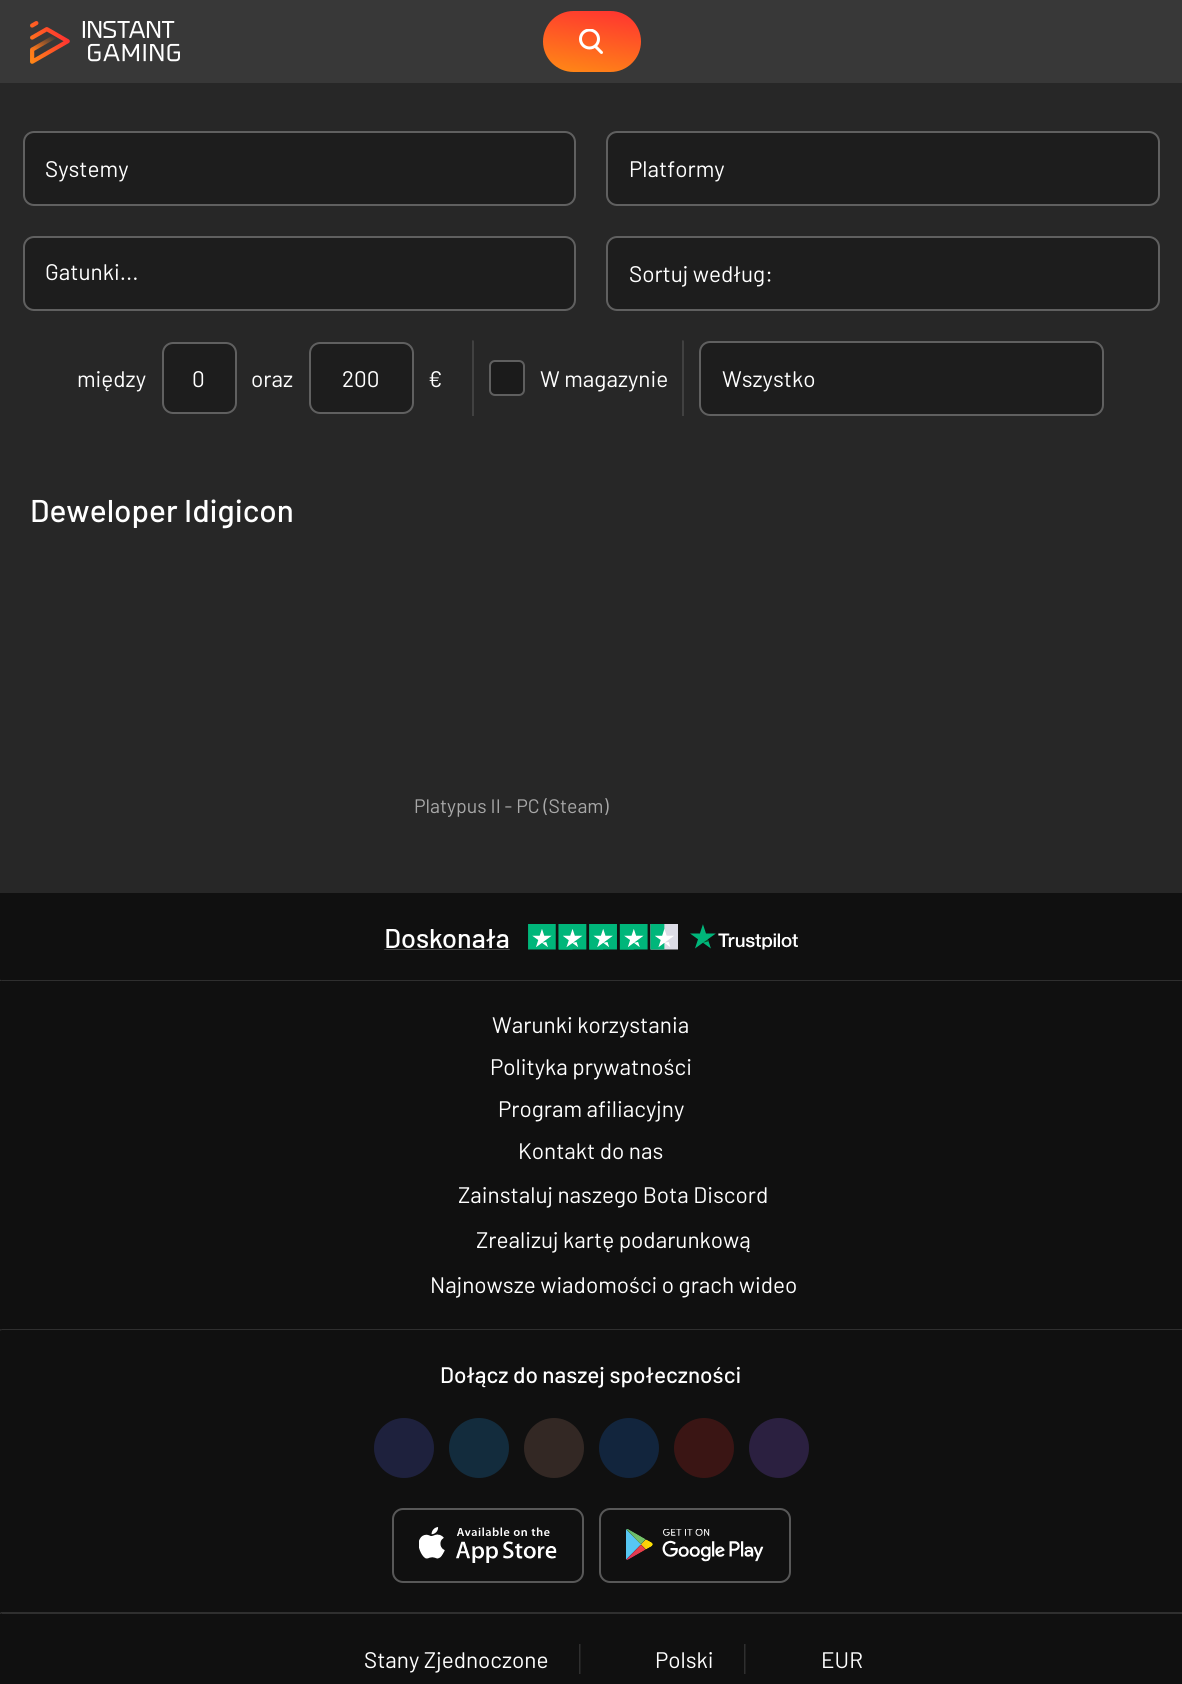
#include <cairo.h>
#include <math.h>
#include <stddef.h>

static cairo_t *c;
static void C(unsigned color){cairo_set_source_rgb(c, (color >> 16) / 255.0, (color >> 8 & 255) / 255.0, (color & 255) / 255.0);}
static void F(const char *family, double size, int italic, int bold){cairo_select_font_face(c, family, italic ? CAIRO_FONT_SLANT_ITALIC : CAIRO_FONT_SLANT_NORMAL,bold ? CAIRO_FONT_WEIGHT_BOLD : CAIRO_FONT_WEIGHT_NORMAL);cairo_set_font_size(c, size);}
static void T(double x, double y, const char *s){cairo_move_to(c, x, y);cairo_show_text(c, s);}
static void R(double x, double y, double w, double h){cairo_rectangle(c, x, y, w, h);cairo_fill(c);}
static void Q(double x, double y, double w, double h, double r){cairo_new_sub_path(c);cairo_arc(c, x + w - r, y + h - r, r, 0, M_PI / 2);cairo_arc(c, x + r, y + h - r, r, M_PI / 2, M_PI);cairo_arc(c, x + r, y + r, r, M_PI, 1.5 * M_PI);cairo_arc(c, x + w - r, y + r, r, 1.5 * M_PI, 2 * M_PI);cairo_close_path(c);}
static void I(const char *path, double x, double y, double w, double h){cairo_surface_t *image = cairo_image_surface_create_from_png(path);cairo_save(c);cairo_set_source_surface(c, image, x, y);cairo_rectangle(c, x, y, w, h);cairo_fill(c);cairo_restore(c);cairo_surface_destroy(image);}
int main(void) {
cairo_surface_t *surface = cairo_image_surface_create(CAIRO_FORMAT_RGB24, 1182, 1684);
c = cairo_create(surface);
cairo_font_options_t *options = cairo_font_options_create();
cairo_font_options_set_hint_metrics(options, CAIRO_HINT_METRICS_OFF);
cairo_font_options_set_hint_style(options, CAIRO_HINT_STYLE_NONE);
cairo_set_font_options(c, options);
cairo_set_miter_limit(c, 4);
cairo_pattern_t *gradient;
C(0x272727);
cairo_paint(c);
C(0x383838);
R(0,0,1182,83);
I("1.png",30,21,150,43);
gradient = cairo_pattern_create_linear(585,79,598,3.1);
cairo_pattern_add_color_stop_rgba(gradient,0,1,0.541,0.082,1);
cairo_pattern_add_color_stop_rgba(gradient,1,1,0.192,0.192,1);
cairo_set_source(c,gradient);
cairo_pattern_destroy(gradient);
Q(543,11,98,61,30.5);
cairo_fill(c);
I("2.png",579,29,24,25);
C(0x1d1d1d);
Q(23,131,553,75,11);
cairo_fill(c);
Q(24,132,551,73,10);
cairo_set_source_rgba(c,1,1,1,0.3);
cairo_stroke(c);
F("Barlow",22.5,0,0);
C(0xffffff);
T(45,177,"Systemy");
C(0x1d1d1d);
Q(606,131,554,75,11);
cairo_fill(c);
Q(607,132,552,73,10);
cairo_set_source_rgba(c,1,1,1,0.3);
cairo_stroke(c);
C(0xffffff);
T(629,177,"Platformy");
C(0x1d1d1d);
Q(23,236,553,75,11);
cairo_fill(c);
Q(24,237,551,73,10);
cairo_set_source_rgba(c,1,1,1,0.3);
cairo_stroke(c);
C(0xffffff);
T(45,280,"Gatunki...");
C(0x1d1d1d);
Q(606,236,554,75,11);
cairo_fill(c);
Q(607,237,552,73,10);
cairo_set_source_rgba(c,1,1,1,0.3);
cairo_stroke(c);
C(0xffffff);
T(629,282,"Sortuj według:");
T(77,387,"między");
C(0x1d1d1d);
Q(162,342,75,72,11);
cairo_fill(c);
Q(163,343,73,70,10);
cairo_set_source_rgba(c,1,1,1,0.3);
cairo_stroke(c);
C(0xffffff);
T(192,387,"0");
T(251,387,"oraz");
C(0x1d1d1d);
Q(309,342,105,72,11);
cairo_fill(c);
Q(310,343,103,70,10);
cairo_set_source_rgba(c,1,1,1,0.3);
cairo_stroke(c);
C(0xffffff);
T(342,387,"200");
T(428,387,"€");
C(0x414141);
cairo_new_path(c);
cairo_move_to(c,472.5,340.5);
cairo_line_to(c,474,340.5);
cairo_line_to(c,474,342);
cairo_close_path(c);
cairo_fill(c);
cairo_set_source_rgba(c,0.667,0.667,0.667,0.2);
cairo_new_path(c);
cairo_move_to(c,472,416);
cairo_line_to(c,472,340);
cairo_line_to(c,474,342);
cairo_line_to(c,474,416);
cairo_close_path(c);
cairo_fill(c);
C(0x1b1b1b);
Q(489,360,36,36,6);
cairo_fill(c);
Q(490,361,34,34,5);
cairo_set_source_rgba(c,1,1,1,0.3);
cairo_stroke(c);
C(0xffffff);
T(540,387,"W magazynie");
C(0x414141);
cairo_new_path(c);
cairo_move_to(c,682.5,340.5);
cairo_line_to(c,684,340.5);
cairo_line_to(c,684,342);
cairo_close_path(c);
cairo_fill(c);
cairo_set_source_rgba(c,0.667,0.667,0.667,0.2);
cairo_new_path(c);
cairo_move_to(c,682,416);
cairo_line_to(c,682,340);
cairo_line_to(c,684,342);
cairo_line_to(c,684,416);
cairo_close_path(c);
cairo_fill(c);
C(0x1d1d1d);
Q(699,341,405,75,11);
cairo_fill(c);
Q(700,342,403,73,10);
cairo_set_source_rgba(c,1,1,1,0.3);
cairo_stroke(c);
C(0xffffff);
T(722,387,"Wszystko");
F("Barlow Medium",31.5,0,0);
T(30,522,"Deweloper Idigicon");
F("Barlow",19.5,0,0);
C(0xa8a8a8);
T(414,813,"Platypus II - PC (Steam)");
C(0x101010);
R(0,893,1182,791);
I("3.png",384,924,414,26);
C(0x2f2f2f);
cairo_new_path(c);
cairo_move_to(c,0,980);
cairo_line_to(c,1182,980);
cairo_line_to(c,1182,981);
cairo_line_to(c,2,981);
cairo_close_path(c);
cairo_fill(c);
C(0x353535);
cairo_new_path(c);
cairo_move_to(c,0,981);
cairo_line_to(c,0,979.5);
cairo_line_to(c,1.5,981);
cairo_close_path(c);
cairo_fill(c);
F("Barlow",22.5,0,0);
C(0xffffff);
T(492,1033,"Warunki korzystania");
T(490,1075,"Polityka prywatności");
T(498,1117,"Program afiliacyjny");
T(518,1159,"Kontakt do nas");
T(458,1203,"Zainstaluj naszego Bota Discord");
T(476,1248,"Zrealizuj kartę podarunkową");
T(430,1293,"Najnowsze wiadomości o grach wideo");
C(0x2f2f2f);
cairo_new_path(c);
cairo_move_to(c,0,1329);
cairo_line_to(c,1182,1329);
cairo_line_to(c,1182,1330);
cairo_line_to(c,2,1330);
cairo_close_path(c);
cairo_fill(c);
cairo_set_source_rgba(c,0.667,0.667,0.667,0.2);
cairo_new_path(c);
cairo_move_to(c,0,1330.5);
cairo_line_to(c,0,1329);
cairo_line_to(c,1.5,1330.5);
cairo_close_path(c);
cairo_fill(c);
F("Barlow Medium",22.5,0,0);
C(0xffffff);
T(440,1383,"Dołącz do naszej społeczności");
C(0x1e213d);
cairo_new_path(c);
cairo_arc(c,404,1448,30,0,2 * M_PI);
cairo_fill(c);
C(0x132c3d);
cairo_arc(c,479,1448,30,0,2 * M_PI);
cairo_fill(c);
C(0x332824);
cairo_arc(c,554,1448,30,0,2 * M_PI);
cairo_fill(c);
C(0x12253d);
cairo_arc(c,629,1448,30,0,2 * M_PI);
cairo_fill(c);
C(0x3a1514);
cairo_arc(c,704,1448,30,0,2 * M_PI);
cairo_fill(c);
C(0x2b2040);
cairo_arc(c,779,1448,30,0,2 * M_PI);
cairo_fill(c);
Q(393,1509,190,73,10);
C(0x585858);
cairo_stroke(c);
I("4.png",419,1527,138,36);
Q(600,1509,190,73,10);
cairo_stroke(c);
I("5.png",626,1529,138,33);
C(0x2f2f2f);
cairo_new_path(c);
cairo_move_to(c,0,1612);
cairo_line_to(c,1182,1612);
cairo_line_to(c,1182,1614);
cairo_line_to(c,2,1614);
cairo_close_path(c);
cairo_fill(c);
cairo_new_path(c);
cairo_move_to(c,0,1614);
cairo_line_to(c,0,1612.5);
cairo_line_to(c,1.5,1614);
cairo_close_path(c);
cairo_fill(c);
F("Barlow",22.5,0,0);
C(0xffffff);
T(364,1668,"Stany Zjednoczone");
C(0x2f2f2f);
cairo_new_path(c);
cairo_move_to(c,579,1644);
cairo_line_to(c,580.5,1644);
cairo_line_to(c,580.5,1645.5);
cairo_close_path(c);
cairo_fill(c);
cairo_set_source_rgba(c,0.667,0.667,0.667,0.2);
cairo_new_path(c);
cairo_move_to(c,579,1674);
cairo_line_to(c,579,1644);
cairo_line_to(c,580.5,1645.5);
cairo_line_to(c,580.5,1674);
cairo_close_path(c);
cairo_fill(c);
C(0xffffff);
T(655,1668,"Polski");
C(0x2f2f2f);
cairo_new_path(c);
cairo_move_to(c,744,1644);
cairo_line_to(c,745.5,1644);
cairo_line_to(c,745.5,1645.5);
cairo_close_path(c);
cairo_fill(c);
cairo_set_source_rgba(c,0.667,0.667,0.667,0.2);
cairo_new_path(c);
cairo_move_to(c,744,1674);
cairo_line_to(c,744,1644);
cairo_line_to(c,745.5,1645.5);
cairo_line_to(c,745.5,1674);
cairo_close_path(c);
cairo_fill(c);
C(0xffffff);
T(821,1668,"EUR");
cairo_surface_write_to_png(surface, "o.png");
cairo_font_options_destroy(options);
cairo_destroy(c);
cairo_surface_destroy(surface);
return 0;
}
